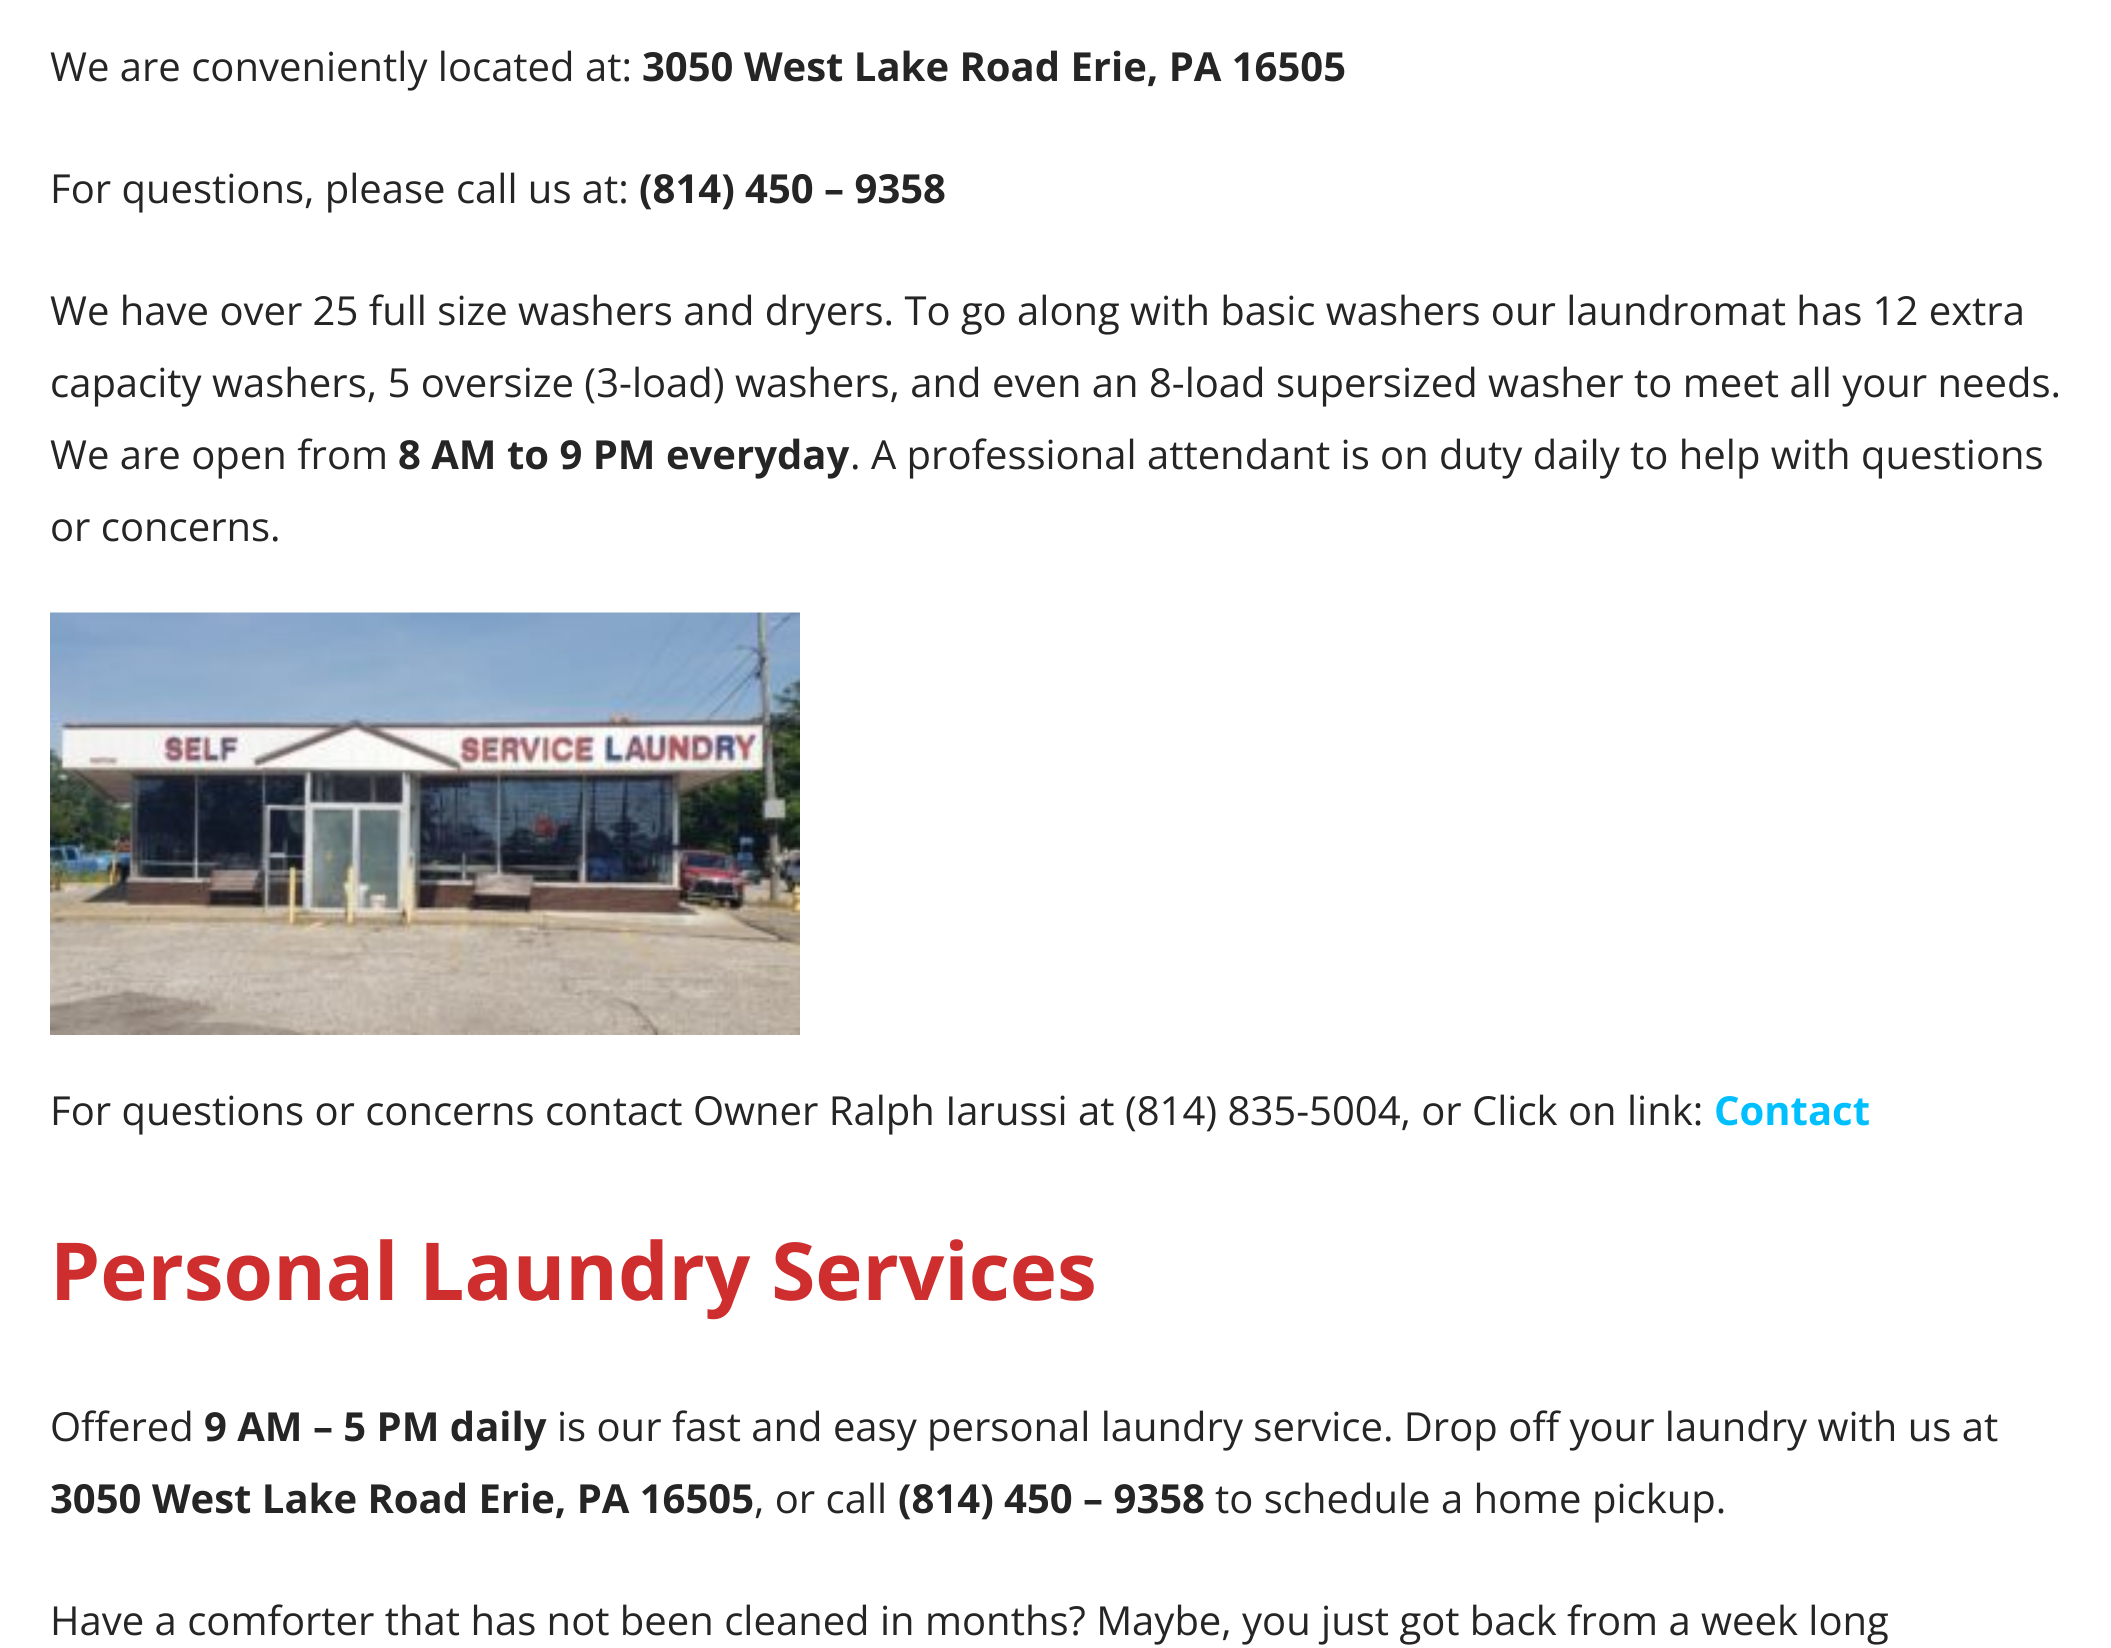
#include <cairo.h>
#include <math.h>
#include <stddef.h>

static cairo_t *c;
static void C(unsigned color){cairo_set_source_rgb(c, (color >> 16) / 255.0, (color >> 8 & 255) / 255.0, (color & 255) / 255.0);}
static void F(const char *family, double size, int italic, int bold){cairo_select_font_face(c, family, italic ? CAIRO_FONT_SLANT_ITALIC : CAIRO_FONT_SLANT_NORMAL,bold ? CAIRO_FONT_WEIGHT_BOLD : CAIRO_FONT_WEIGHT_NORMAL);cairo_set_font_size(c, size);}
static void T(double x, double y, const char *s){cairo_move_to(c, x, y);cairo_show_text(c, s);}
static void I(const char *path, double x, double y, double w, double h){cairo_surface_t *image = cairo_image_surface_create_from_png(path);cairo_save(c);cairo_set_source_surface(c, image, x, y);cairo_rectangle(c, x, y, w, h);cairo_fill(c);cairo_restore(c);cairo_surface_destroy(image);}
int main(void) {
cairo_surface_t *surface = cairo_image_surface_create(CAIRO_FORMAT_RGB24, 2111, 1648);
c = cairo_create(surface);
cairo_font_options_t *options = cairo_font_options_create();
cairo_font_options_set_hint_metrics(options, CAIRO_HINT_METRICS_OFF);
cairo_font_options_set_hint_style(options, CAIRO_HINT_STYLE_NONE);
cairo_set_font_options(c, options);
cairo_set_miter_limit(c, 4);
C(0xffffff);
cairo_paint(c);
F("Open Sans",40,0,0);
C(0x252525);
T(50,81,"We are conveniently located at:");
F("Open Sans",40,0,1);
T(642,81,"3050 West Lake Road Erie, PA 16505");
F("Open Sans",40,0,0);
T(50,203,"For questions, please call us at:");
F("Open Sans",40,0,1);
T(639,203,"(814) 450 – 9358");
F("Open Sans",40,0,0);
T(50,325,"We have over 25 full size washers and dryers. To go along with basic washers our laundromat has 12 extra");
T(50,397,"capacity washers, 5 oversize (3-load) washers, and even an 8-load supersized washer to meet all your needs.");
T(50,469,"We are open from");
F("Open Sans",40,0,1);
T(398,469,"8 AM to 9 PM everyday");
F("Open Sans",40,0,0);
T(850,469,". A professional attendant is on duty daily to help with questions");
T(50,541,"or concerns.");
I("1.png",50,612,750,423);
T(50,1125,"For questions or concerns contact Owner Ralph Iarussi at (814) 835-5004, or Click on link:");
F("Open Sans",40,0,1);
C(0x00bfff);
T(1714,1125,"Contact");
F("Open Sans",80,0,1);
C(0xcf2e2e);
T(50,1300,"Personal Laundry Services");
F("Open Sans",40,0,0);
C(0x252525);
T(50,1441,"Offered");
F("Open Sans",40,0,1);
T(204,1441,"9 AM – 5 PM daily");
F("Open Sans",40,0,0);
T(557,1441,"is our fast and easy personal laundry service. Drop off your laundry with us at");
F("Open Sans",40,0,1);
T(50,1513,"3050 West Lake Road Erie, PA 16505");
F("Open Sans",40,0,0);
T(754,1513,", or call");
F("Open Sans",40,0,1);
T(898,1513,"(814) 450 – 9358");
F("Open Sans",40,0,0);
T(1215,1513,"to schedule a home pickup.");
T(50,1635,"Have a comforter that has not been cleaned in months? Maybe, you just got back from a week long");
cairo_surface_write_to_png(surface, "o.png");
cairo_font_options_destroy(options);
cairo_destroy(c);
cairo_surface_destroy(surface);
return 0;
}
